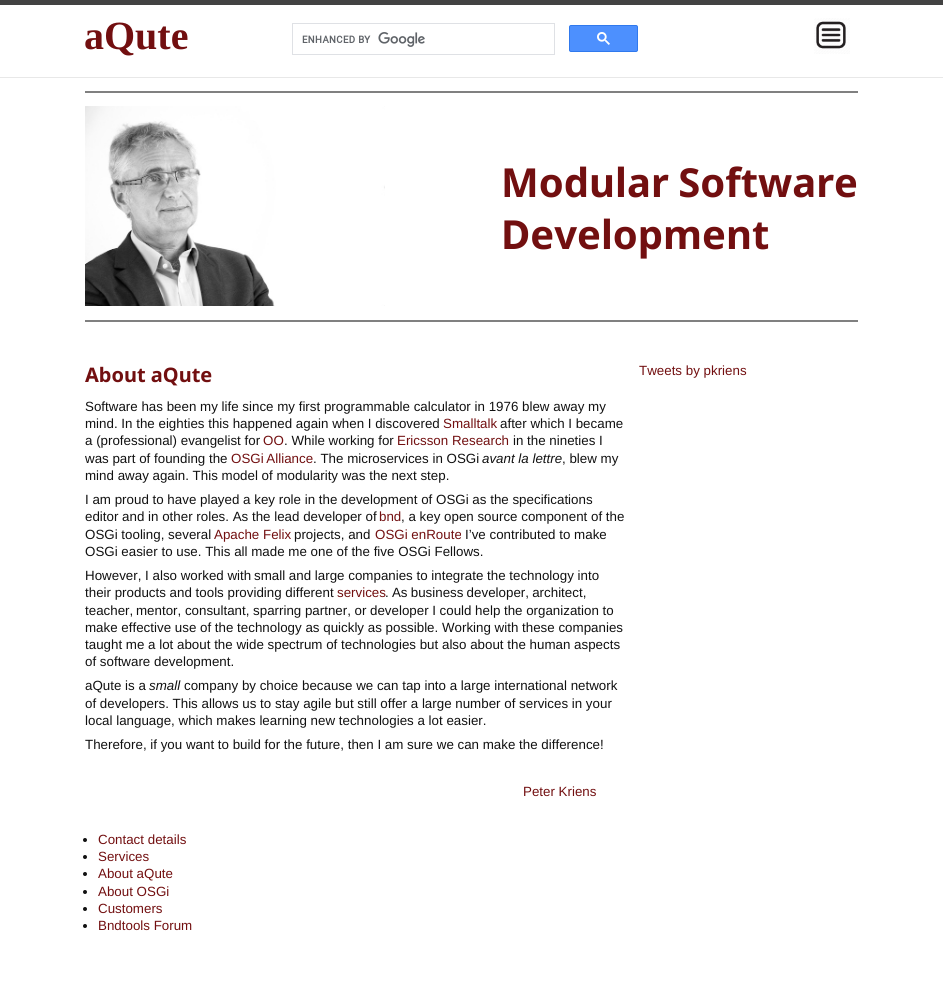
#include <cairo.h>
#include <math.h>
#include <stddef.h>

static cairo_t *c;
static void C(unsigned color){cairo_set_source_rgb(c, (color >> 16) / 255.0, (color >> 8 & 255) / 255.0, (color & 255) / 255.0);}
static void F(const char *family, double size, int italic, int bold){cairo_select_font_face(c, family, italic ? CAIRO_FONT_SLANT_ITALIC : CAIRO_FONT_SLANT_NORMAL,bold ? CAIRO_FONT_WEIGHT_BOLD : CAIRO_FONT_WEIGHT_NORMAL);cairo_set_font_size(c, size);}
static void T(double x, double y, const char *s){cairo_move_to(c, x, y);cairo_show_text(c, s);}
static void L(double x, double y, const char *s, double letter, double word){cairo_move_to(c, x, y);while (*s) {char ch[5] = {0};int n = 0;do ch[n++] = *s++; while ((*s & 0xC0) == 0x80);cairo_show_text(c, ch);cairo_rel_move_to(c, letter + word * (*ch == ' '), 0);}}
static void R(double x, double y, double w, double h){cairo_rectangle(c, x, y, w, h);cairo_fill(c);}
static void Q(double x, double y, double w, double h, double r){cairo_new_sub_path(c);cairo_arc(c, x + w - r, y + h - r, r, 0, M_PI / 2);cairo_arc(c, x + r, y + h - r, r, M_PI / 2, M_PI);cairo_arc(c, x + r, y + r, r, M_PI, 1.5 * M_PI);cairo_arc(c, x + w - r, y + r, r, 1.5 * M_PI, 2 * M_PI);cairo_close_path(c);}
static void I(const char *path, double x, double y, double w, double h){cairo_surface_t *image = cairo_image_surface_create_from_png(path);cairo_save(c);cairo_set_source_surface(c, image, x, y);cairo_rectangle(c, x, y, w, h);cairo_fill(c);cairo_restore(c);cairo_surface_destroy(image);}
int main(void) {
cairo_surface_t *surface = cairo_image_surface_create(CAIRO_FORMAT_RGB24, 943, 993);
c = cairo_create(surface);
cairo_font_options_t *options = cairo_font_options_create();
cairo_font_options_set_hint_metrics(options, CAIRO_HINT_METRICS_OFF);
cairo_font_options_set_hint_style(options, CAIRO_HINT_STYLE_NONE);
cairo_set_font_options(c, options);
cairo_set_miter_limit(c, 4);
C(0xffffff);
cairo_paint(c);
C(0x424242);
R(0,0,943,5);
C(0xe8e8e8);
R(0,77,943,1);
F("Liberation Serif",40,0,1);
C(0x720f10);
T(84,49,"aQute");
cairo_rectangle(c,292.5,23.5,262,31);
C(0xdfe1e5);
cairo_set_line_width(c,1);
cairo_stroke(c);
I("1.png",302,32,123,15);
C(0x4d90fe);
Q(569.5,25.5,68,26,1.5);
cairo_fill_preserve(c);
C(0x3079ed);
cairo_stroke(c);
I("2.png",597,32,13,13);
I("3.png",814,18,36,36);
C(0x808080);
R(85,91,773,2);
I("4.png",85,106,300,200);
F("Noto Sans",40,0,1);
C(0x720f10);
L(501,197,"Modular Software",0,-1);
T(501,249,"Development");
C(0x808080);
R(85,320,773,2);
F("Noto Sans",20,0,1);
C(0x720f10);
T(85,382,"About aQute");
F("Liberation Sans",13.35,0,0);
C(0x111111);
T(85,411,"Software has been my life since my first programmable calculator in 1976 blew away my");
T(85,428,"mind. In the eighties this happened again when I discovered");
C(0x720f10);
T(443,428,"Smalltalk");
C(0x111111);
T(500,428,"after which I became");
T(85,445,"a (professional) evangelist for");
C(0x720f10);
T(263,445,"OO");
C(0x111111);
T(284,445,". While working for");
C(0x720f10);
T(397,445,"Ericsson Research");
C(0x111111);
T(513,445,"in the nineties I");
T(85,463,"was part of founding the");
C(0x720f10);
L(231,463,"OSGi Alliance",0,-1);
C(0x111111);
T(313,463,". The microservices in OSGi");
F("Liberation Sans",13.35,1,0);
T(482,463,"avant la lettre");
F("Liberation Sans",13.35,0,0);
T(562,463,", blew my");
T(85,480,"mind away again. This model of modularity was the next step.");
T(85,504,"I am proud to have played a key role in the development of OSGi as the specifications");
T(85,521,"editor and in other roles. As the lead developer of");
C(0x720f10);
T(379,521,"bnd");
C(0x111111);
T(401,521,", a key open source component of the");
T(85,539,"OSGi tooling, several");
C(0x720f10);
T(214,539,"Apache Felix");
C(0x111111);
T(294,539,"projects, and");
C(0x720f10);
T(375,539,"OSGi enRoute");
C(0x111111);
T(465,539,"I’ve contributed to make");
T(85,556,"OSGi easier to use. This all made me one of the five OSGi Fellows.");
T(85,580,"However, I also worked with");
T(254,580,"small and large companies to integrate the technology into");
T(85,597,"their products and tools providing different");
C(0x720f10);
T(337,597,"services");
C(0x111111);
L(385,597,". As business developer, architect,",0,-.5);
T(85,615,"teacher,");
L(136,615,"mentor, consultant, sparring partner, or developer I could help the organization to",0,-.1);
T(85,632,"make effective use of the technology as quickly as possible. Working with these companies");
T(85,649,"taught me a lot about the wide spectrum of technologies but also about the human aspects");
T(85,666,"of software development.");
T(85,690,"aQute is a");
F("Liberation Sans",13.35,1,0);
T(149,690,"small");
F("Liberation Sans",13.35,0,0);
T(184,690,"company by choice because we can tap into a large international network");
T(85,708,"of developers. This allows us to stay agile but still offer a large number of services in your");
T(85,725,"local language, which makes learning new technologies a lot easier.");
T(85,749,"Therefore, if you want to build for the future, then I am sure we can make the difference!");
C(0x720f10);
T(523,796,"Peter Kriens");
C(0x111111);
cairo_new_path(c);
cairo_arc(c,85,840,2,0,2 * M_PI);
cairo_fill(c);
C(0x720f10);
T(98,844,"Contact details");
C(0x111111);
cairo_new_path(c);
cairo_arc(c,85,857,2,0,2 * M_PI);
cairo_fill(c);
C(0x720f10);
T(98,861,"Services");
C(0x111111);
cairo_new_path(c);
cairo_arc(c,85,874,2,0,2 * M_PI);
cairo_fill(c);
C(0x720f10);
T(98,878,"About aQute");
C(0x111111);
cairo_new_path(c);
cairo_arc(c,85,892,2,0,2 * M_PI);
cairo_fill(c);
C(0x720f10);
T(98,896,"About OSGi");
C(0x111111);
cairo_new_path(c);
cairo_arc(c,85,909,2,0,2 * M_PI);
cairo_fill(c);
C(0x720f10);
T(98,913,"Customers");
C(0x111111);
cairo_new_path(c);
cairo_arc(c,85,926,2,0,2 * M_PI);
cairo_fill(c);
C(0x720f10);
T(98,930,"Bndtools Forum");
T(639,375,"Tweets by pkriens");
cairo_surface_write_to_png(surface, "o.png");
cairo_font_options_destroy(options);
cairo_destroy(c);
cairo_surface_destroy(surface);
return 0;
}
